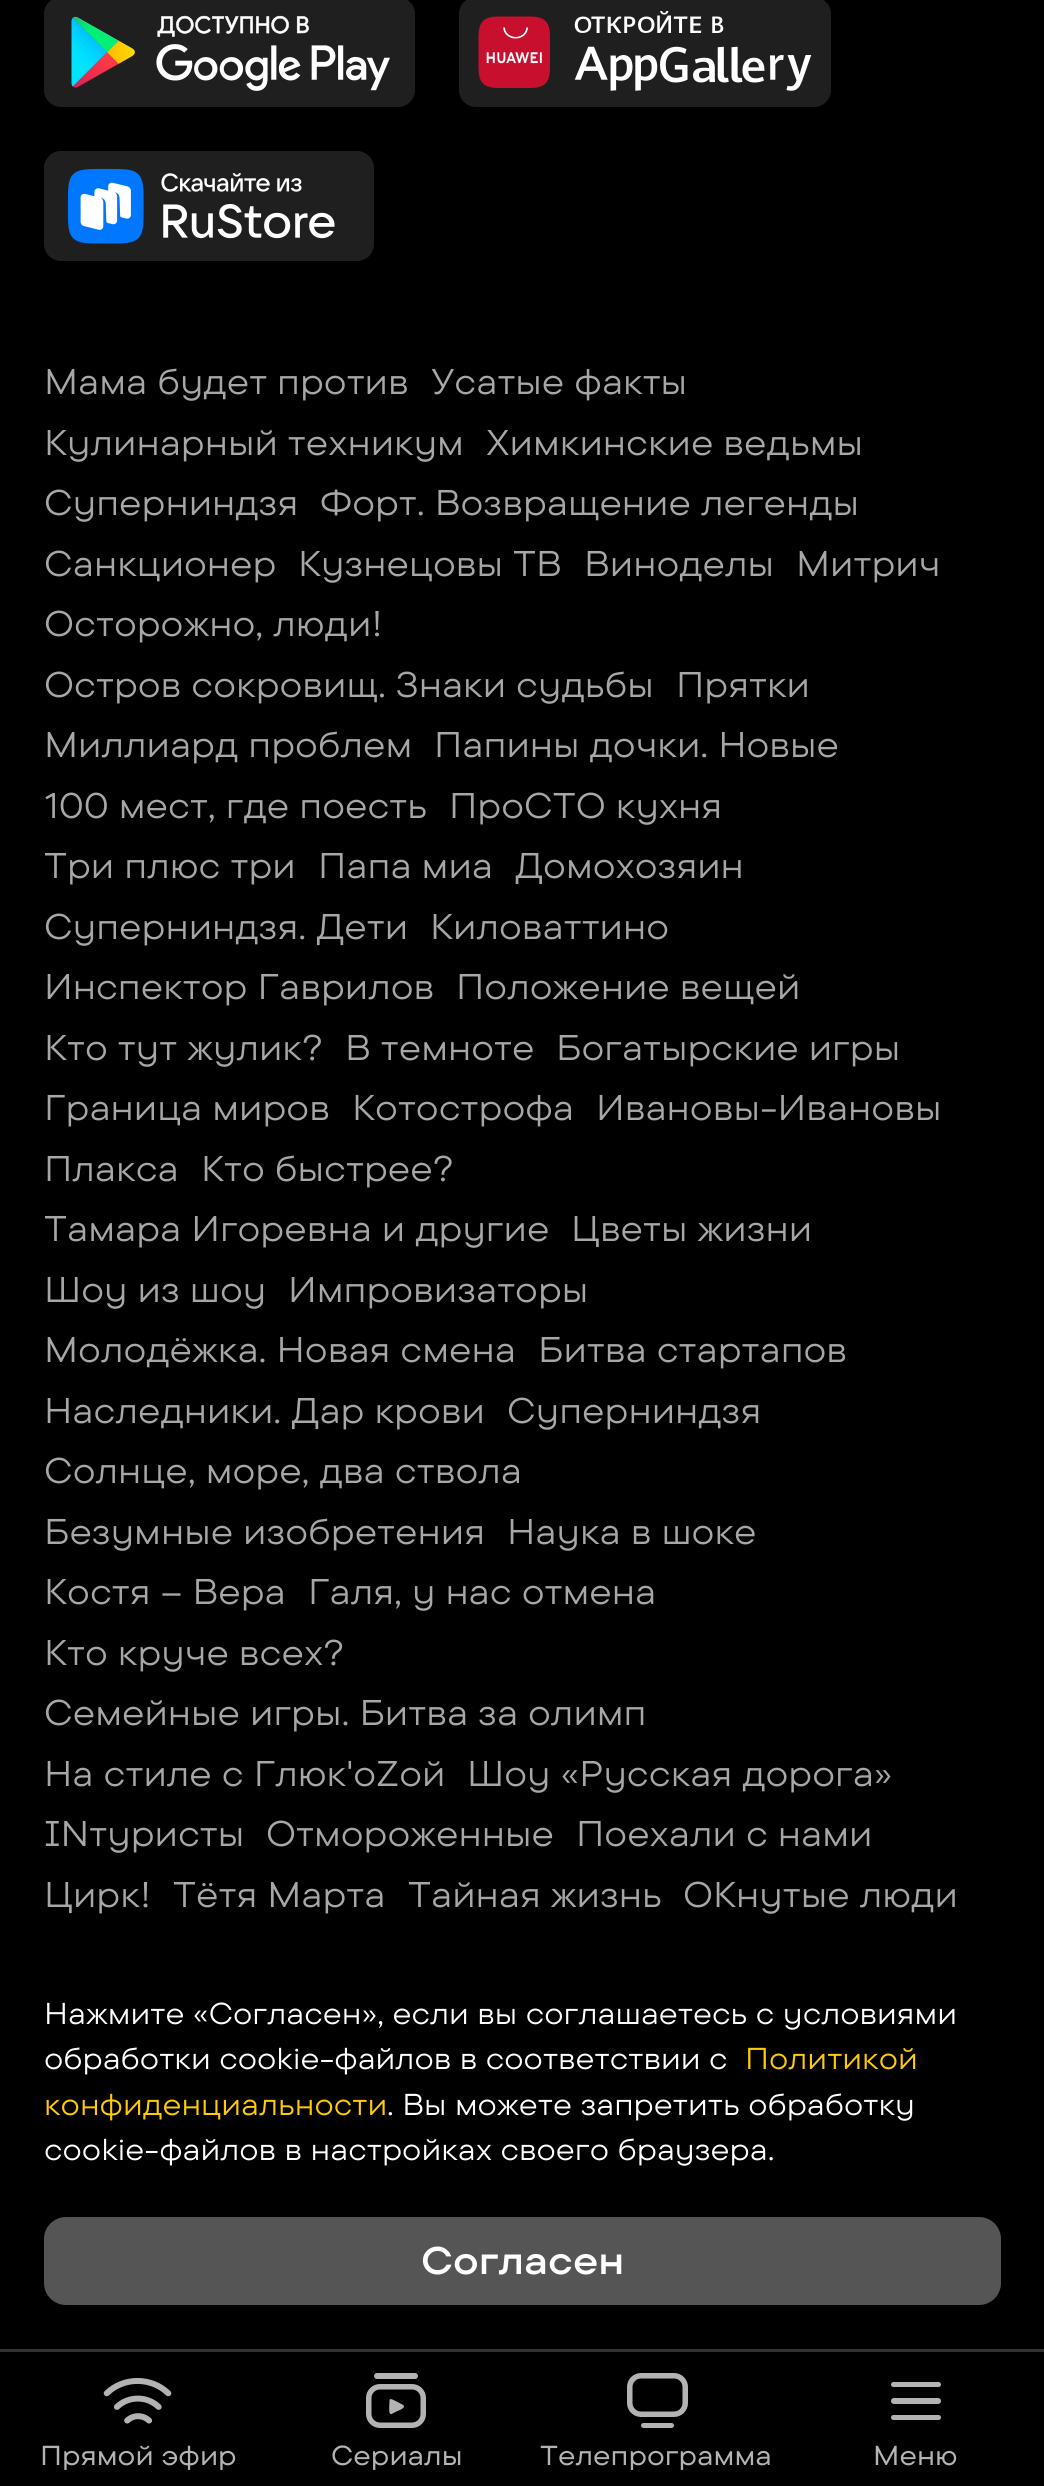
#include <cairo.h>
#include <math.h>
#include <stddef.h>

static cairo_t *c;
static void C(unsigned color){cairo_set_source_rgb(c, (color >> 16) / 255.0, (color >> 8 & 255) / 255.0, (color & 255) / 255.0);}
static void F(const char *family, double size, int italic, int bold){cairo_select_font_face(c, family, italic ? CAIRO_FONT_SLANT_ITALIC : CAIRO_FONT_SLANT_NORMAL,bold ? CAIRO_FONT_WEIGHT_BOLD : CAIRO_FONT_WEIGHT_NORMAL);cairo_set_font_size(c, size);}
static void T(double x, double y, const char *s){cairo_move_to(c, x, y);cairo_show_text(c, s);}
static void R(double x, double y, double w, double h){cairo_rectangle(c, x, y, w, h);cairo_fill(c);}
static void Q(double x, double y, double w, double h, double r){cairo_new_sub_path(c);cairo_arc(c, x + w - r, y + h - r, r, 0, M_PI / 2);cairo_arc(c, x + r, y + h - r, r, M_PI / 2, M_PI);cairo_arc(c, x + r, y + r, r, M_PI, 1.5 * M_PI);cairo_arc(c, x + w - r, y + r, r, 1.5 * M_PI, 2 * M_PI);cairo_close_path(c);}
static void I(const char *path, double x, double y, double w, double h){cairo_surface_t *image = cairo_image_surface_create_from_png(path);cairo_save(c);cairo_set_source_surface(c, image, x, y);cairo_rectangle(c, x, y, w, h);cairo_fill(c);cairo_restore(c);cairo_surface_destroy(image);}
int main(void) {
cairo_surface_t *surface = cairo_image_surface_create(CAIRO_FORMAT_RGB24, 1044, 2486);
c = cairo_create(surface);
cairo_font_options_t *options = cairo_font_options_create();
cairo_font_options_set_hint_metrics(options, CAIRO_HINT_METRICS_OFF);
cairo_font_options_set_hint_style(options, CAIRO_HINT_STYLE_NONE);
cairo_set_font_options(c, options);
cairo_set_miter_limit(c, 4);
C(0x000000);
cairo_paint(c);
I("1.png",44,0,371,107);
I("2.png",459,0,372,107);
I("3.png",44,151,330,110);
F("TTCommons",35.75,0,0);
C(0xa7a7a7);
T(44,394,"Мама будет против");
T(431,394,"Усатые факты");
T(44,455,"Кулинарный техникум");
T(486,455,"Химкинские ведьмы");
T(44,515,"Суперниндзя");
T(320,515,"Форт. Возвращение легенды");
T(44,576,"Санкционер");
T(298,576,"Кузнецовы ТВ");
T(584,576,"Виноделы");
T(796,576,"Митрич");
T(44,636,"Осторожно, люди!");
T(44,697,"Остров сокровищ. Знаки судьбы");
T(676,697,"Прятки");
T(44,757,"Миллиард проблем");
T(434,757,"Папины дочки. Новые");
T(44,818,"100 мест, где поесть");
T(449,818,"ПроСТО кухня");
T(44,878,"Три плюс три");
T(318,878,"Папа миа");
T(515,878,"Домохозяин");
T(44,939,"Суперниндзя. Дети");
T(430,939,"Киловаттино");
T(44,999,"Инспектор Гаврилов");
T(456,999,"Положение вещей");
T(44,1060,"Кто тут жулик?");
T(345,1060,"В темноте");
T(556,1060,"Богатырские игры");
T(44,1120,"Граница миров");
T(352,1120,"Котострофа");
T(596,1120,"Ивановы-Ивановы");
T(44,1181,"Плакса");
T(201,1181,"Кто быстрее?");
T(44,1241,"Тамара Игоревна и другие");
T(571,1241,"Цветы жизни");
T(44,1302,"Шоу из шоу");
T(288,1302,"Импровизаторы");
T(44,1362,"Молодёжка. Новая смена");
T(538,1362,"Битва стартапов");
T(44,1423,"Наследники. Дар крови");
T(507,1423,"Суперниндзя");
T(44,1483,"Солнце, море, два ствола");
T(44,1544,"Безумные изобретения");
T(507,1544,"Наука в шоке");
T(44,1604,"Костя – Вера");
T(308,1604,"Галя, у нас отмена");
T(44,1665,"Кто круче всех?");
T(44,1725,"Семейные игры. Битва за олимп");
T(44,1786,"На стиле с Глюк'oZой");
T(467,1786,"Шоу «Русская дорога»");
T(44,1846,"INтуристы");
T(266,1846,"Отмороженные");
T(576,1846,"Поехали с нами");
T(44,1907,"Цирк!");
T(173,1907,"Тётя Марта");
T(408,1907,"Тайная жизнь");
T(683,1907,"ОКнутые люди");
F("TTCommons",30.25,0,0);
C(0xffffff);
T(44,2024,"Нажмите «Согласен», если вы соглашаетесь с условиями");
T(44,2069,"обработки cookie-файлов в соответствии с");
C(0xffcb05);
T(745,2069,"Политикой");
T(44,2115,"конфиденциальности");
C(0xffffff);
T(387,2115,". Вы можете запретить обработку");
T(44,2160,"cookie-файлов в настройках своего браузера.");
C(0x555555);
Q(44,2217,957,88,22);
cairo_fill(c);
F("TTCommons SemiBold",38.5,0,0);
C(0xffffff);
T(421,2274,"Согласен");
C(0x333333);
R(0,2349,1044,3);
I("4.png",103,2377,69,47);
F("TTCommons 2",27.5,0,0);
C(0xb3b3b3);
T(40,2465,"Прямой эфир");
Q(368.75,2386.75,54.5,38.5,11.25);
cairo_set_line_width(c,5.5);
cairo_stroke(c);
Q(374,2373,44,6,3);
cairo_fill(c);
cairo_new_path(c);
cairo_move_to(c,389.5,2400.5);
cairo_curve_to(c,389.5,2403,388.5,2412.5,390,2413.5);
cairo_curve_to(c,391,2415,392.5,2413.5,393.5,2413);
cairo_line_to(c,397.5,2411);
cairo_curve_to(c,399,2410.5,404,2408.5,404,2406.5);
cairo_curve_to(c,404,2404.5,400.5,2404,399.5,2403);
cairo_line_to(c,395.5,2401);
cairo_curve_to(c,395,2401,389.5,2397,389.5,2400.5);
cairo_close_path(c);
cairo_fill(c);
T(331,2465,"Сериалы");
Q(629.75,2375.75,55.5,38.5,11.25);
cairo_stroke(c);
Q(641,2423,33,5,2.5);
cairo_fill(c);
T(540,2465,"Телепрограмма");
Q(891,2382,50,5,2.5);
cairo_fill(c);
Q(891,2398,50,6,3);
cairo_fill(c);
Q(891,2415,50,5,2.5);
cairo_fill(c);
T(873,2465,"Меню");
cairo_surface_write_to_png(surface, "o.png");
cairo_font_options_destroy(options);
cairo_destroy(c);
cairo_surface_destroy(surface);
return 0;
}
